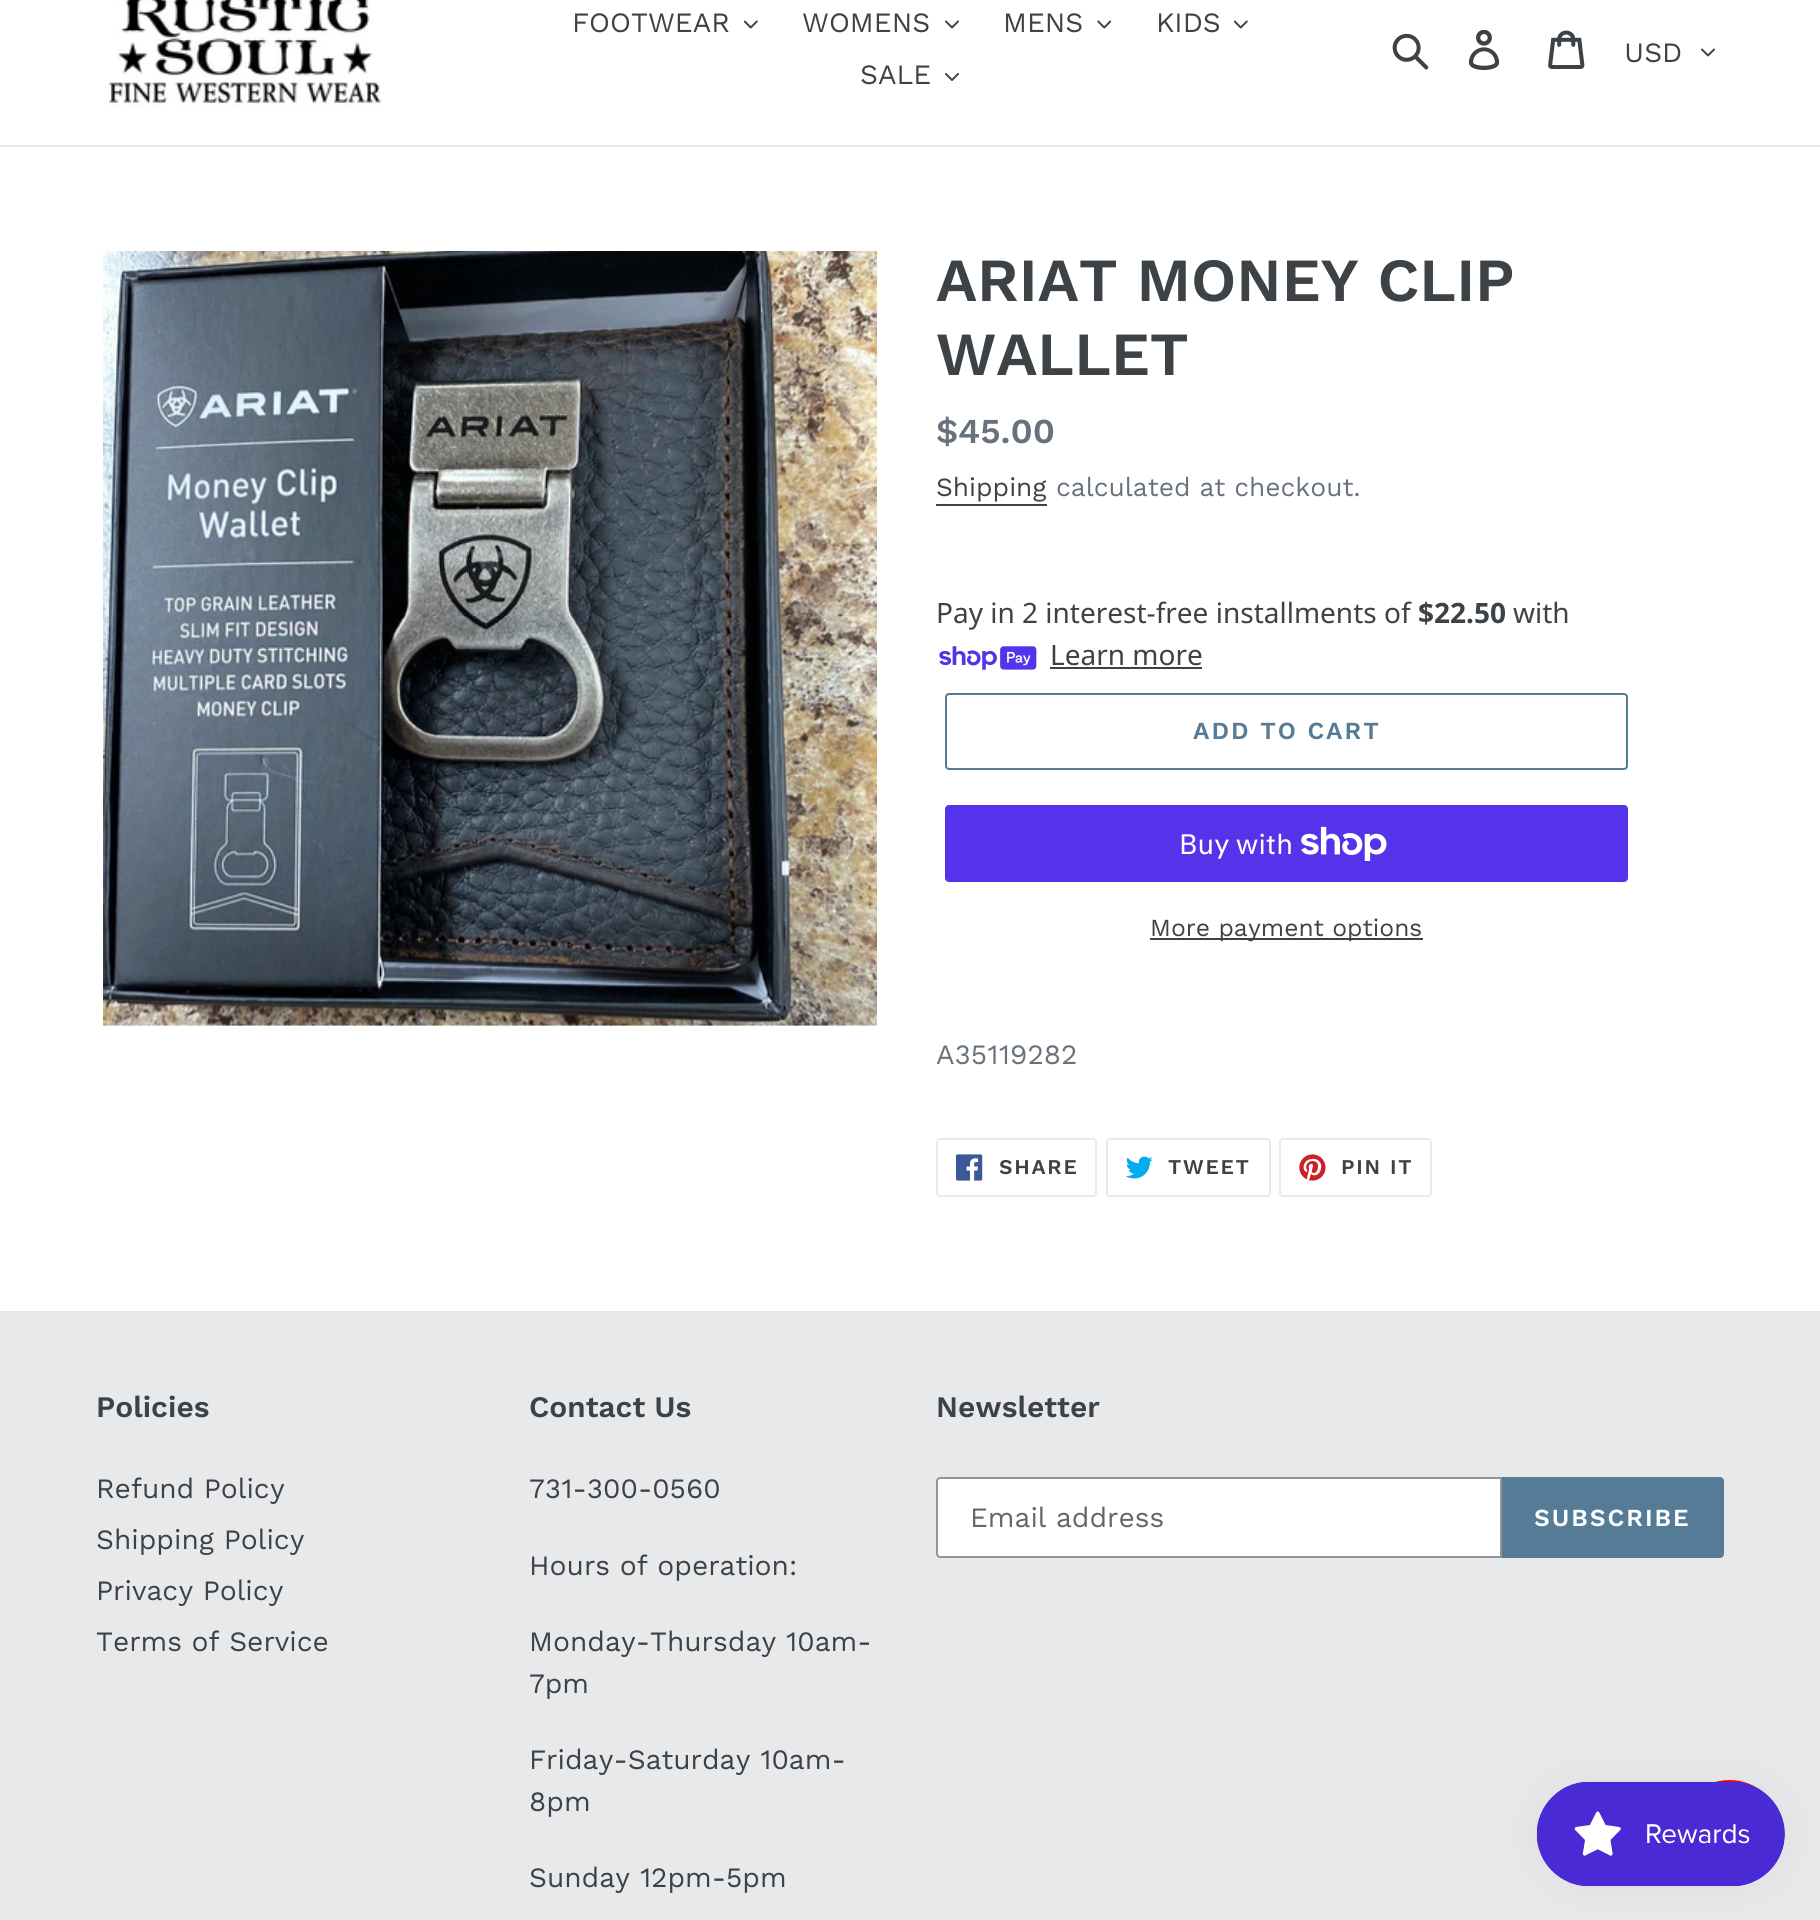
#include <cairo.h>
#include <math.h>
#include <stddef.h>

static cairo_t *c;
static void C(unsigned color){cairo_set_source_rgb(c, (color >> 16) / 255.0, (color >> 8 & 255) / 255.0, (color & 255) / 255.0);}
static void F(const char *family, double size, int italic, int bold){cairo_select_font_face(c, family, italic ? CAIRO_FONT_SLANT_ITALIC : CAIRO_FONT_SLANT_NORMAL,bold ? CAIRO_FONT_WEIGHT_BOLD : CAIRO_FONT_WEIGHT_NORMAL);cairo_set_font_size(c, size);}
static void T(double x, double y, const char *s){cairo_move_to(c, x, y);cairo_show_text(c, s);}
static void L(double x, double y, const char *s, double letter, double word){cairo_move_to(c, x, y);while (*s) {char ch[5] = {0};int n = 0;do ch[n++] = *s++; while ((*s & 0xC0) == 0x80);cairo_show_text(c, ch);cairo_rel_move_to(c, letter + word * (*ch == ' '), 0);}}
static void R(double x, double y, double w, double h){cairo_rectangle(c, x, y, w, h);cairo_fill(c);}
static void Q(double x, double y, double w, double h, double r){cairo_new_sub_path(c);cairo_arc(c, x + w - r, y + h - r, r, 0, M_PI / 2);cairo_arc(c, x + r, y + h - r, r, M_PI / 2, M_PI);cairo_arc(c, x + r, y + r, r, M_PI, 1.5 * M_PI);cairo_arc(c, x + w - r, y + r, r, 1.5 * M_PI, 2 * M_PI);cairo_close_path(c);}
static void S(double x, double y, double w, double h, double r, double blur, double alpha){cairo_push_group_with_content(c, CAIRO_CONTENT_ALPHA);cairo_set_operator(c, CAIRO_OPERATOR_SOURCE);for (int i = 15; i >= -15 && fmin(w, h) + blur * i / 3 > 0; i -= 2) {double e = blur * i / 6;cairo_set_source_rgba(c, 0, 0, 0, alpha * erfc((i - 1) / 8.5) / 2);Q(x - e, y - e, w + 2 * e, h + 2 * e, fmax(0, fmin(r + e + blur * .6, fmin(w, h) / 2 + e)));cairo_fill(c);}cairo_pattern_t *soft = cairo_pop_group(c);cairo_mask(c, soft);cairo_pattern_destroy(soft);}
static void I(const char *path, double x, double y, double w, double h){cairo_surface_t *image = cairo_image_surface_create_from_png(path);cairo_save(c);cairo_set_source_surface(c, image, x, y);cairo_rectangle(c, x, y, w, h);cairo_fill(c);cairo_restore(c);cairo_surface_destroy(image);}
int main(void) {
cairo_surface_t *surface = cairo_image_surface_create(CAIRO_FORMAT_RGB24, 1820, 1920);
c = cairo_create(surface);
cairo_font_options_t *options = cairo_font_options_create();
cairo_font_options_set_hint_metrics(options, CAIRO_HINT_METRICS_OFF);
cairo_font_options_set_hint_style(options, CAIRO_HINT_STYLE_NONE);
cairo_set_font_options(c, options);
cairo_set_miter_limit(c, 4);
C(0xffffff);
cairo_paint(c);
C(0xe8e9eb);
R(0,145,1820,2);
I("1.png",109,0,272,107);
F("Work Sans",28,0,0);
C(0x3d4246);
T(572,32,"FOOTWEAR");
I("2.png",744,20,14,9);
T(802,32,"WOMENS");
I("3.png",945,20,14,9);
T(1003,32,"MENS");
I("4.png",1097,20,14,9);
T(1156,32,"KIDS");
I("2.png",1234,20,14,9);
T(860,84,"SALE");
I("5.png",945,73,14,8);
I("6.png",1392,33,37,37);
I("7.png",1468,30,32,40);
I("8.png",1548,30,37,39);
T(1624,62,"USD");
I("3.png",1701,48,14,9);
I("9.png",103,251,774,775);
F("Work Sans SemiBold",61.25,0,0);
T(936,301,"ARIAT MONEY CLIP");
T(936,375,"WALLET");
F("Work Sans SemiBold",35,0,0);
C(0x69727b);
T(936,443,"$45.00");
F("Work Sans",26.25,0,0);
C(0x3d4246);
T(936,496,"Shipping");
R(936,504,111,2);
C(0x69727b);
T(1056,496,"calculated at checkout.");
F("Noto Sans",28,0,0);
C(0x3d4246);
T(936,623,"Pay in 2 interest-free installments of");
F("Noto Sans",28,0,1);
T(1418,623,"$22.50");
F("Noto Sans",28,0,0);
T(1513,623,"with");
I("10.png",939,646,98,24);
T(1050,665,"Learn more");
R(1050,667,152,2);
Q(946,694,681,75,3);
C(0x557b97);
cairo_stroke(c);
F("Work Sans SemiBold",24.5,0,0);
L(1193,739,"ADD TO CART",2,0);
C(0x5433eb);
Q(945,805,683,77,4);
cairo_fill(c);
F("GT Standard",28,0,0);
C(0xffffff);
T(1179,854,"Buy with");
I("11.png",1301,826,86,35);
C(0x3d4246);
R(1150,938,273,2);
F("Work Sans",24.5,0,0);
T(1150,936,"More payment options");
F("Work Sans",28,0,0);
C(0x69727b);
T(936,1064,"A35119282");
Q(937,1139,159,57,3);
C(0xe8e9eb);
cairo_stroke(c);
I("12.png",956,1154,27,27);
F("Work Sans SemiBold",21,0,0);
C(0x3d4246);
L(999,1174,"SHARE",1.75,0);
Q(1107,1139,163,57,3);
C(0xe8e9eb);
cairo_stroke(c);
I("13.png",1126,1156,27,23);
C(0x3d4246);
L(1168,1174,"TWEET",1.75,0);
Q(1280,1139,151,57,3);
C(0xe8e9eb);
cairo_stroke(c);
I("14.png",1299,1154,27,27);
C(0x3d4246);
L(1341,1174,"PIN IT",1.75,0);
C(0xe8e9eb);
R(0,1311,1820,609);
F("Work Sans SemiBold",29.75,0,0);
C(0x3d4246);
T(96,1417,"Policies");
F("Work Sans",28,0,0);
T(96,1498,"Refund Policy");
T(96,1549,"Shipping Policy");
T(96,1600,"Privacy Policy");
T(96,1651,"Terms of Service");
F("Work Sans SemiBold",29.75,0,0);
T(529,1417,"Contact Us");
F("Work Sans",28,0,0);
T(529,1498,"731-300-0560");
T(529,1575,"Hours of operation:");
T(529,1651,"Monday-Thursday 10am-");
T(529,1693,"7pm");
T(529,1769,"Friday-Saturday 10am-");
T(529,1811,"8pm");
T(529,1887,"Sunday 12pm-5pm");
F("Work Sans SemiBold",29.75,0,0);
T(936,1417,"Newsletter");
C(0xffffff);
cairo_new_path(c);
cairo_move_to(c,940,1478);
cairo_line_to(c,1501,1478);
cairo_line_to(c,1501,1557);
cairo_line_to(c,940,1557);
cairo_curve_to(c,938.5,1557,937,1555.5,937,1554);
cairo_line_to(c,937,1481);
cairo_curve_to(c,937,1479.5,938.5,1478,940,1478);
cairo_close_path(c);
cairo_fill_preserve(c);
C(0x949494);
cairo_stroke(c);
F("Work Sans",28,0,0);
C(0x666666);
T(970,1527,"Email address");
C(0x557b97);
cairo_new_path(c);
cairo_move_to(c,1502,1477);
cairo_line_to(c,1720,1477);
cairo_curve_to(c,1722,1477,1724,1479,1724,1481);
cairo_line_to(c,1724,1554);
cairo_curve_to(c,1724,1556,1722,1558,1720,1558);
cairo_line_to(c,1502,1558);
cairo_close_path(c);
cairo_fill(c);
F("Work Sans SemiBold",24.5,0,0);
C(0xffffff);
L(1534,1526,"SUBSCRIBE",2,0);
C(0xff0000);
cairo_new_path(c);
cairo_arc(c,1729.5,1832.5,52.5,0,2 * M_PI);
cairo_fill(c);
C(0x000000);
S(1537,1782,248,105,52.5,22,.05);
I("15.png",1536,1781,249,106);
cairo_surface_write_to_png(surface, "o.png");
cairo_font_options_destroy(options);
cairo_destroy(c);
cairo_surface_destroy(surface);
return 0;
}
